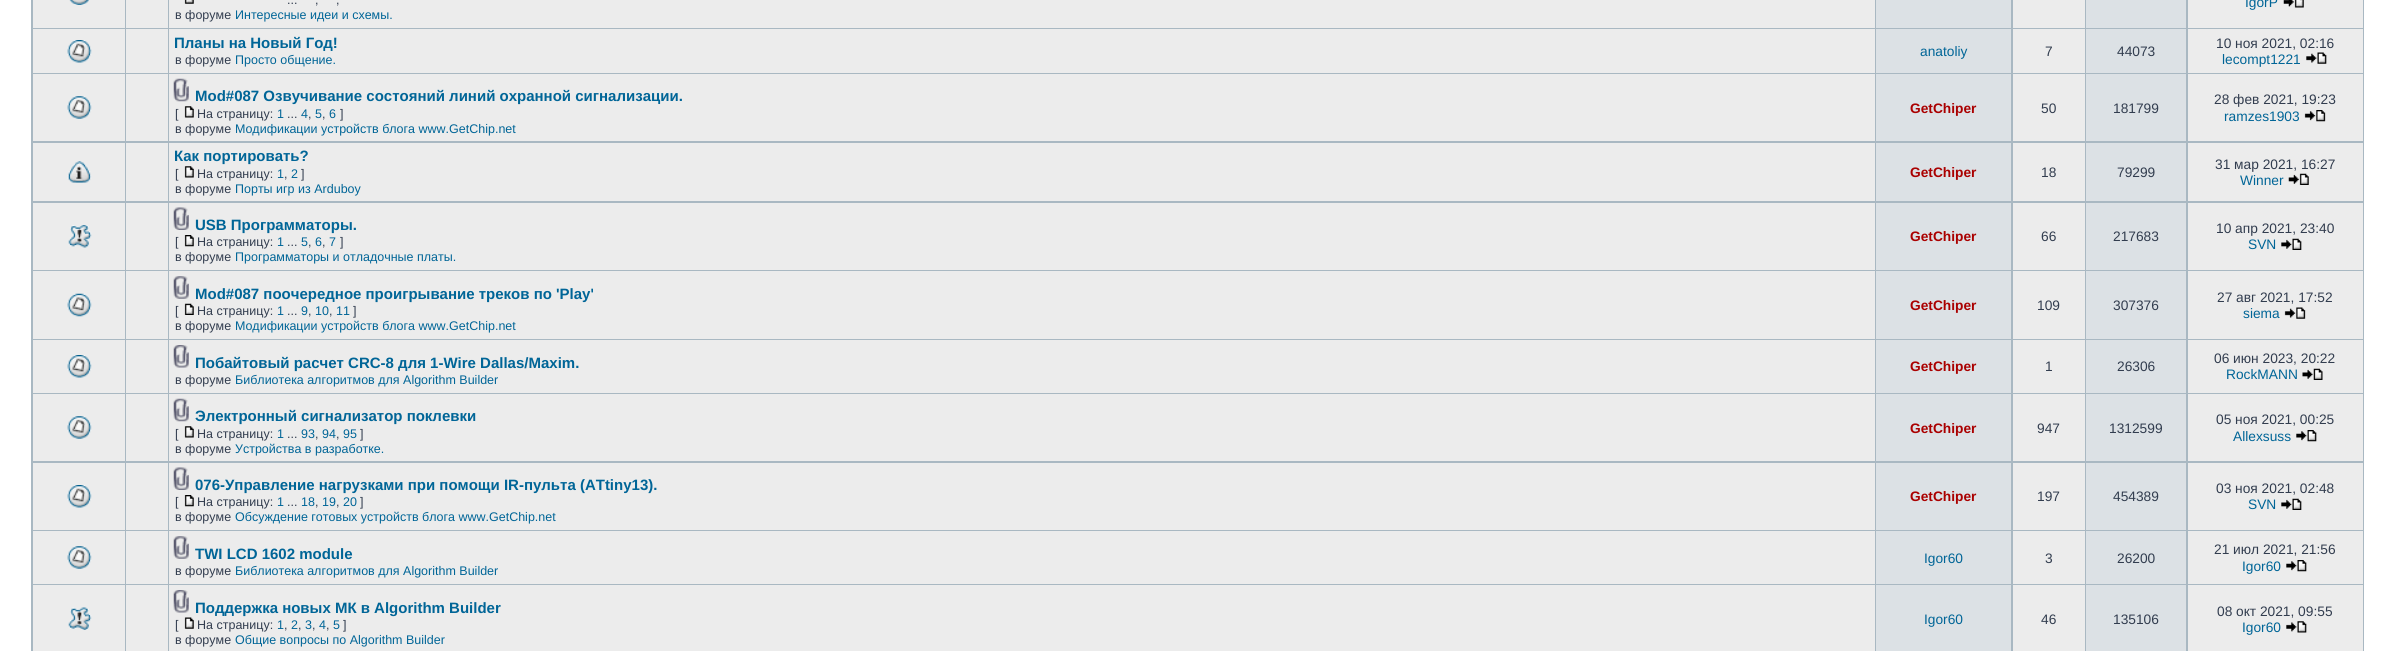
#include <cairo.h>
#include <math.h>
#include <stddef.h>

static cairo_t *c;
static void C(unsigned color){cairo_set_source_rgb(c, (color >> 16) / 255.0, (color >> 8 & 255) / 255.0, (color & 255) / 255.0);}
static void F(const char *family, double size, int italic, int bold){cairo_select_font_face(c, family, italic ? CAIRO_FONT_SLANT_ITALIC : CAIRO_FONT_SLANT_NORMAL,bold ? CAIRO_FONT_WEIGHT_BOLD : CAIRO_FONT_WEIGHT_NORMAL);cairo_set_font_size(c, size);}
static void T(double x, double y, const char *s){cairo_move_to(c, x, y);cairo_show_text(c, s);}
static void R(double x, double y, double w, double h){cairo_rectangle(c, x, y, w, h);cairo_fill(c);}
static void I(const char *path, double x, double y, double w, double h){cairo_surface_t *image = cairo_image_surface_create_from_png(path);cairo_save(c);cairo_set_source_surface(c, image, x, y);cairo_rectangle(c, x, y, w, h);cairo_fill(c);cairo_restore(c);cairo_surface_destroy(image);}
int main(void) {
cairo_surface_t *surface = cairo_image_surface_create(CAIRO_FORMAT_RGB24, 2395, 651);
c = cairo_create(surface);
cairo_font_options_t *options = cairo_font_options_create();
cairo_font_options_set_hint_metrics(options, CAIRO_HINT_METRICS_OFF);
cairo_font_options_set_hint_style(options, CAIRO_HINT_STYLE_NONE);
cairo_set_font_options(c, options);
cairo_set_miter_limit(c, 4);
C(0xffffff);
cairo_paint(c);
C(0xa9b8c2);
R(31,0,2333,651);
C(0xececec);
R(33,0,92,28);
I("1.png",69,0,20,5);
R(126,0,42,28);
R(169,0,1706,28);
I("2.png",184,0,10,4);
F("Liberation Sans",12.5,0,0);
C(0x323d4f);
T(287,4,"...");
T(315,4,",");
T(336,4,",");
T(175,19,"в форуме");
C(0x006597);
T(235,19,"Интересные идеи и схемы.");
C(0xdce1e5);
R(1876,0,135,28);
C(0xececec);
R(2013,0,72,28);
C(0xdce1e5);
R(2086,0,100,28);
C(0xececec);
R(2188,0,175,28);
F("Liberation Sans",13.75,0,0);
C(0x006597);
T(2245,7,"IgorP");
I("3.png",2283,0,21,8);
C(0xececec);
R(33,29,92,44);
I("4.png",67,40,25,23);
R(126,29,42,44);
R(169,29,1706,44);
F("Liberation Sans",15,0,1);
C(0x006597);
T(174,48,"Планы на Новый Год!");
F("Liberation Sans",12.5,0,0);
C(0x323d4f);
T(175,64,"в форуме");
C(0x006597);
T(235,64,"Просто общение.");
C(0xdce1e5);
R(1876,29,135,44);
F("Liberation Sans",13.75,0,0);
C(0x006597);
T(1920,56,"anatoliy");
C(0xececec);
R(2013,29,72,44);
C(0x323d4f);
T(2045,56,"7");
C(0xdce1e5);
R(2086,29,100,44);
C(0x323d4f);
T(2117,56,"44073");
C(0xececec);
R(2188,29,175,44);
C(0x323d4f);
T(2216,48,"10 ноя 2021, 02:16");
C(0x006597);
T(2222,64,"lecompt1221");
I("5.png",2306,52,21,12);
C(0xececec);
R(33,74,92,67);
I("6.png",67,96,25,23);
R(126,74,42,67);
R(169,74,1706,67);
I("7.png",173,78,16,24);
F("Liberation Sans",15,0,1);
C(0x006597);
T(195,101,"Mod#087 Озвучивание состояний линий охранной сигнализации.");
F("Liberation Sans",12.5,0,0);
C(0x323d4f);
T(175,118,"[");
I("8.png",184,106,10,12);
T(197,118,"На страницу:");
C(0x006597);
T(277,118,"1");
C(0x323d4f);
T(287,118,"...");
C(0x006597);
T(301,118,"4");
C(0x323d4f);
T(308,118,",");
C(0x006597);
T(315,118,"5");
C(0x323d4f);
T(322,118,",");
C(0x006597);
T(329,118,"6");
C(0x323d4f);
T(340,118,"]");
T(175,133,"в форуме");
C(0x006597);
T(235,133,"Модификации устройств блога www.GetChip.net");
C(0xdce1e5);
R(1876,74,135,67);
F("Liberation Sans",13.75,0,1);
C(0xaa0000);
T(1910,113,"GetChiper");
C(0xececec);
R(2013,74,72,67);
F("Liberation Sans",13.75,0,0);
C(0x323d4f);
T(2041,113,"50");
C(0xdce1e5);
R(2086,74,100,67);
C(0x323d4f);
T(2113,113,"181799");
C(0xececec);
R(2188,74,175,67);
C(0x323d4f);
T(2214,104,"28 фев 2021, 19:23");
C(0x006597);
T(2224,121,"ramzes1903");
I("9.png",2304,110,22,12);
C(0xececec);
R(33,143,92,58);
I("10.png",67,161,25,22);
R(126,143,42,58);
R(169,143,1706,58);
F("Liberation Sans",15,0,1);
C(0x006597);
T(174,161,"Как портировать?");
F("Liberation Sans",12.5,0,0);
C(0x323d4f);
T(175,178,"[");
I("8.png",184,166,10,12);
T(197,178,"На страницу:");
C(0x006597);
T(277,178,"1");
C(0x323d4f);
T(284,178,",");
C(0x006597);
T(291,178,"2");
C(0x323d4f);
T(301,178,"]");
T(175,193,"в форуме");
C(0x006597);
T(235,193,"Порты игр из Arduboy");
C(0xdce1e5);
R(1876,143,135,58);
F("Liberation Sans",13.75,0,1);
C(0xaa0000);
T(1910,177,"GetChiper");
C(0xececec);
R(2013,143,72,58);
F("Liberation Sans",13.75,0,0);
C(0x323d4f);
T(2041,177,"18");
C(0xdce1e5);
R(2086,143,100,58);
C(0x323d4f);
T(2117,177,"79299");
C(0xececec);
R(2188,143,175,58);
C(0x323d4f);
T(2215,169,"31 мар 2021, 16:27");
C(0x006597);
T(2240,185,"Winner");
I("11.png",2288,173,21,12);
C(0xececec);
R(33,203,92,67);
I("12.png",68,225,24,23);
R(126,203,42,67);
R(169,203,1706,67);
I("13.png",173,207,16,23);
F("Liberation Sans",15,0,1);
C(0x006597);
T(195,230,"USB Программаторы.");
F("Liberation Sans",12.5,0,0);
C(0x323d4f);
T(175,246,"[");
I("14.png",184,235,10,12);
T(197,246,"На страницу:");
C(0x006597);
T(277,246,"1");
C(0x323d4f);
T(287,246,"...");
C(0x006597);
T(301,246,"5");
C(0x323d4f);
T(308,246,",");
C(0x006597);
T(315,246,"6");
C(0x323d4f);
T(322,246,",");
C(0x006597);
T(329,246,"7");
C(0x323d4f);
T(340,246,"]");
T(175,261,"в форуме");
C(0x006597);
T(235,261,"Программаторы и отладочные платы.");
C(0xdce1e5);
R(1876,203,135,67);
F("Liberation Sans",13.75,0,1);
C(0xaa0000);
T(1910,241,"GetChiper");
C(0xececec);
R(2013,203,72,67);
F("Liberation Sans",13.75,0,0);
C(0x323d4f);
T(2041,241,"66");
C(0xdce1e5);
R(2086,203,100,67);
C(0x323d4f);
T(2113,241,"217683");
C(0xececec);
R(2188,203,175,67);
C(0x323d4f);
T(2216,233,"10 апр 2021, 23:40");
C(0x006597);
T(2248,249,"SVN");
I("15.png",2281,238,21,12);
C(0xececec);
R(33,271,92,68);
I("16.png",67,293,25,24);
R(126,271,42,68);
R(169,271,1706,68);
I("17.png",173,276,16,23);
F("Liberation Sans",15,0,1);
C(0x006597);
T(195,299,"Mod#087 поочередное проигрывание треков по 'Play'");
F("Liberation Sans",12.5,0,0);
C(0x323d4f);
T(175,315,"[");
I("18.png",184,303,10,12);
T(197,315,"На страницу:");
C(0x006597);
T(277,315,"1");
C(0x323d4f);
T(287,315,"...");
C(0x006597);
T(301,315,"9");
C(0x323d4f);
T(308,315,",");
C(0x006597);
T(315,315,"10");
C(0x323d4f);
T(329,315,",");
C(0x006597);
T(336,315,"11");
C(0x323d4f);
T(353,315,"]");
T(175,330,"в форуме");
C(0x006597);
T(235,330,"Модификации устройств блога www.GetChip.net");
C(0xdce1e5);
R(1876,271,135,68);
F("Liberation Sans",13.75,0,1);
C(0xaa0000);
T(1910,310,"GetChiper");
C(0xececec);
R(2013,271,72,68);
F("Liberation Sans",13.75,0,0);
C(0x323d4f);
T(2037,310,"109");
C(0xdce1e5);
R(2086,271,100,68);
C(0x323d4f);
T(2113,310,"307376");
C(0xececec);
R(2188,271,175,68);
C(0x323d4f);
T(2217,302,"27 авг 2021, 17:52");
C(0x006597);
T(2243,318,"siema");
I("19.png",2284,307,22,12);
C(0xececec);
R(33,340,92,53);
I("4.png",67,355,25,23);
R(126,340,42,53);
R(169,340,1706,53);
I("20.png",173,345,16,23);
F("Liberation Sans",15,0,1);
C(0x006597);
T(195,368,"Побайтовый расчет CRC-8 для 1-Wire Dallas/Maxim.");
F("Liberation Sans",12.5,0,0);
C(0x323d4f);
T(175,384,"в форуме");
C(0x006597);
T(235,384,"Библиотека алгоритмов для Algorithm Builder");
C(0xdce1e5);
R(1876,340,135,53);
F("Liberation Sans",13.75,0,1);
C(0xaa0000);
T(1910,371,"GetChiper");
C(0xececec);
R(2013,340,72,53);
F("Liberation Sans",13.75,0,0);
C(0x323d4f);
T(2045,371,"1");
C(0xdce1e5);
R(2086,340,100,53);
C(0x323d4f);
T(2117,371,"26306");
C(0xececec);
R(2188,340,175,53);
C(0x323d4f);
T(2214,363,"06 июн 2023, 20:22");
C(0x006597);
T(2226,379,"RockMANN");
I("21.png",2302,368,21,12);
C(0xececec);
R(33,394,92,67);
I("6.png",67,416,25,23);
R(126,394,42,67);
R(169,394,1706,67);
I("7.png",173,398,16,24);
F("Liberation Sans",15,0,1);
C(0x006597);
T(195,421,"Электронный сигнализатор поклевки");
F("Liberation Sans",12.5,0,0);
C(0x323d4f);
T(175,438,"[");
I("8.png",184,426,10,12);
T(197,438,"На страницу:");
C(0x006597);
T(277,438,"1");
C(0x323d4f);
T(287,438,"...");
C(0x006597);
T(301,438,"93");
C(0x323d4f);
T(315,438,",");
C(0x006597);
T(322,438,"94");
C(0x323d4f);
T(336,438,",");
C(0x006597);
T(343,438,"95");
C(0x323d4f);
T(360,438,"]");
T(175,453,"в форуме");
C(0x006597);
T(235,453,"Устройства в разработке.");
C(0xdce1e5);
R(1876,394,135,67);
F("Liberation Sans",13.75,0,1);
C(0xaa0000);
T(1910,433,"GetChiper");
C(0xececec);
R(2013,394,72,67);
F("Liberation Sans",13.75,0,0);
C(0x323d4f);
T(2037,433,"947");
C(0xdce1e5);
R(2086,394,100,67);
C(0x323d4f);
T(2109,433,"1312599");
C(0xececec);
R(2188,394,175,67);
C(0x323d4f);
T(2216,424,"05 ноя 2021, 00:25");
C(0x006597);
T(2233,441,"Allexsuss");
I("22.png",2296,430,21,12);
C(0xececec);
R(33,463,92,67);
I("23.png",67,485,25,23);
R(126,463,42,67);
R(169,463,1706,67);
I("24.png",173,467,16,23);
F("Liberation Sans",15,0,1);
C(0x006597);
T(195,490,"076-Управление нагрузками при помощи IR-пульта (ATtiny13).");
F("Liberation Sans",12.5,0,0);
C(0x323d4f);
T(175,506,"[");
I("14.png",184,495,10,12);
T(197,506,"На страницу:");
C(0x006597);
T(277,506,"1");
C(0x323d4f);
T(287,506,"...");
C(0x006597);
T(301,506,"18");
C(0x323d4f);
T(315,506,",");
C(0x006597);
T(322,506,"19");
C(0x323d4f);
T(336,506,",");
C(0x006597);
T(343,506,"20");
C(0x323d4f);
T(360,506,"]");
T(175,521,"в форуме");
C(0x006597);
T(235,521,"Обсуждение готовых устройств блога www.GetChip.net");
C(0xdce1e5);
R(1876,463,135,67);
F("Liberation Sans",13.75,0,1);
C(0xaa0000);
T(1910,501,"GetChiper");
C(0xececec);
R(2013,463,72,67);
F("Liberation Sans",13.75,0,0);
C(0x323d4f);
T(2037,501,"197");
C(0xdce1e5);
R(2086,463,100,67);
C(0x323d4f);
T(2113,501,"454389");
C(0xececec);
R(2188,463,175,67);
C(0x323d4f);
T(2216,493,"03 ноя 2021, 02:48");
C(0x006597);
T(2248,509,"SVN");
I("15.png",2281,498,21,12);
C(0xececec);
R(33,531,92,53);
I("25.png",67,546,25,23);
R(126,531,42,53);
R(169,531,1706,53);
I("17.png",173,536,16,23);
F("Liberation Sans",15,0,1);
C(0x006597);
T(195,559,"TWI LCD 1602 module");
F("Liberation Sans",12.5,0,0);
C(0x323d4f);
T(175,575,"в форуме");
C(0x006597);
T(235,575,"Библиотека алгоритмов для Algorithm Builder");
C(0xdce1e5);
R(1876,531,135,53);
F("Liberation Sans",13.75,0,0);
C(0x006597);
T(1924,563,"Igor60");
C(0xececec);
R(2013,531,72,53);
C(0x323d4f);
T(2045,563,"3");
C(0xdce1e5);
R(2086,531,100,53);
C(0x323d4f);
T(2117,563,"26200");
C(0xececec);
R(2188,531,175,53);
C(0x323d4f);
T(2214,554,"21 июл 2021, 21:56");
C(0x006597);
T(2242,571,"Igor60");
I("26.png",2286,560,21,12);
C(0xececec);
R(33,585,92,66);
I("27.png",68,607,24,23);
R(126,585,42,66);
R(169,585,1706,66);
I("20.png",173,590,16,23);
F("Liberation Sans",15,0,1);
C(0x006597);
T(195,613,"Поддержка новых МК в Algorithm Builder");
F("Liberation Sans",12.5,0,0);
C(0x323d4f);
T(175,629,"[");
I("28.png",184,617,10,12);
T(197,629,"На страницу:");
C(0x006597);
T(277,629,"1");
C(0x323d4f);
T(284,629,",");
C(0x006597);
T(291,629,"2");
C(0x323d4f);
T(298,629,",");
C(0x006597);
T(305,629,"3");
C(0x323d4f);
T(312,629,",");
C(0x006597);
T(319,629,"4");
C(0x323d4f);
T(326,629,",");
C(0x006597);
T(333,629,"5");
C(0x323d4f);
T(343,629,"]");
T(175,644,"в форуме");
C(0x006597);
T(235,644,"Общие вопросы по Algorithm Builder");
C(0xdce1e5);
R(1876,585,135,66);
F("Liberation Sans",13.75,0,0);
C(0x006597);
T(1924,624,"Igor60");
C(0xececec);
R(2013,585,72,66);
C(0x323d4f);
T(2041,624,"46");
C(0xdce1e5);
R(2086,585,100,66);
C(0x323d4f);
T(2113,624,"135106");
C(0xececec);
R(2188,585,175,66);
C(0x323d4f);
T(2217,616,"08 окт 2021, 09:55");
C(0x006597);
T(2242,632,"Igor60");
I("29.png",2286,621,21,12);
cairo_surface_write_to_png(surface, "o.png");
cairo_font_options_destroy(options);
cairo_destroy(c);
cairo_surface_destroy(surface);
return 0;
}
